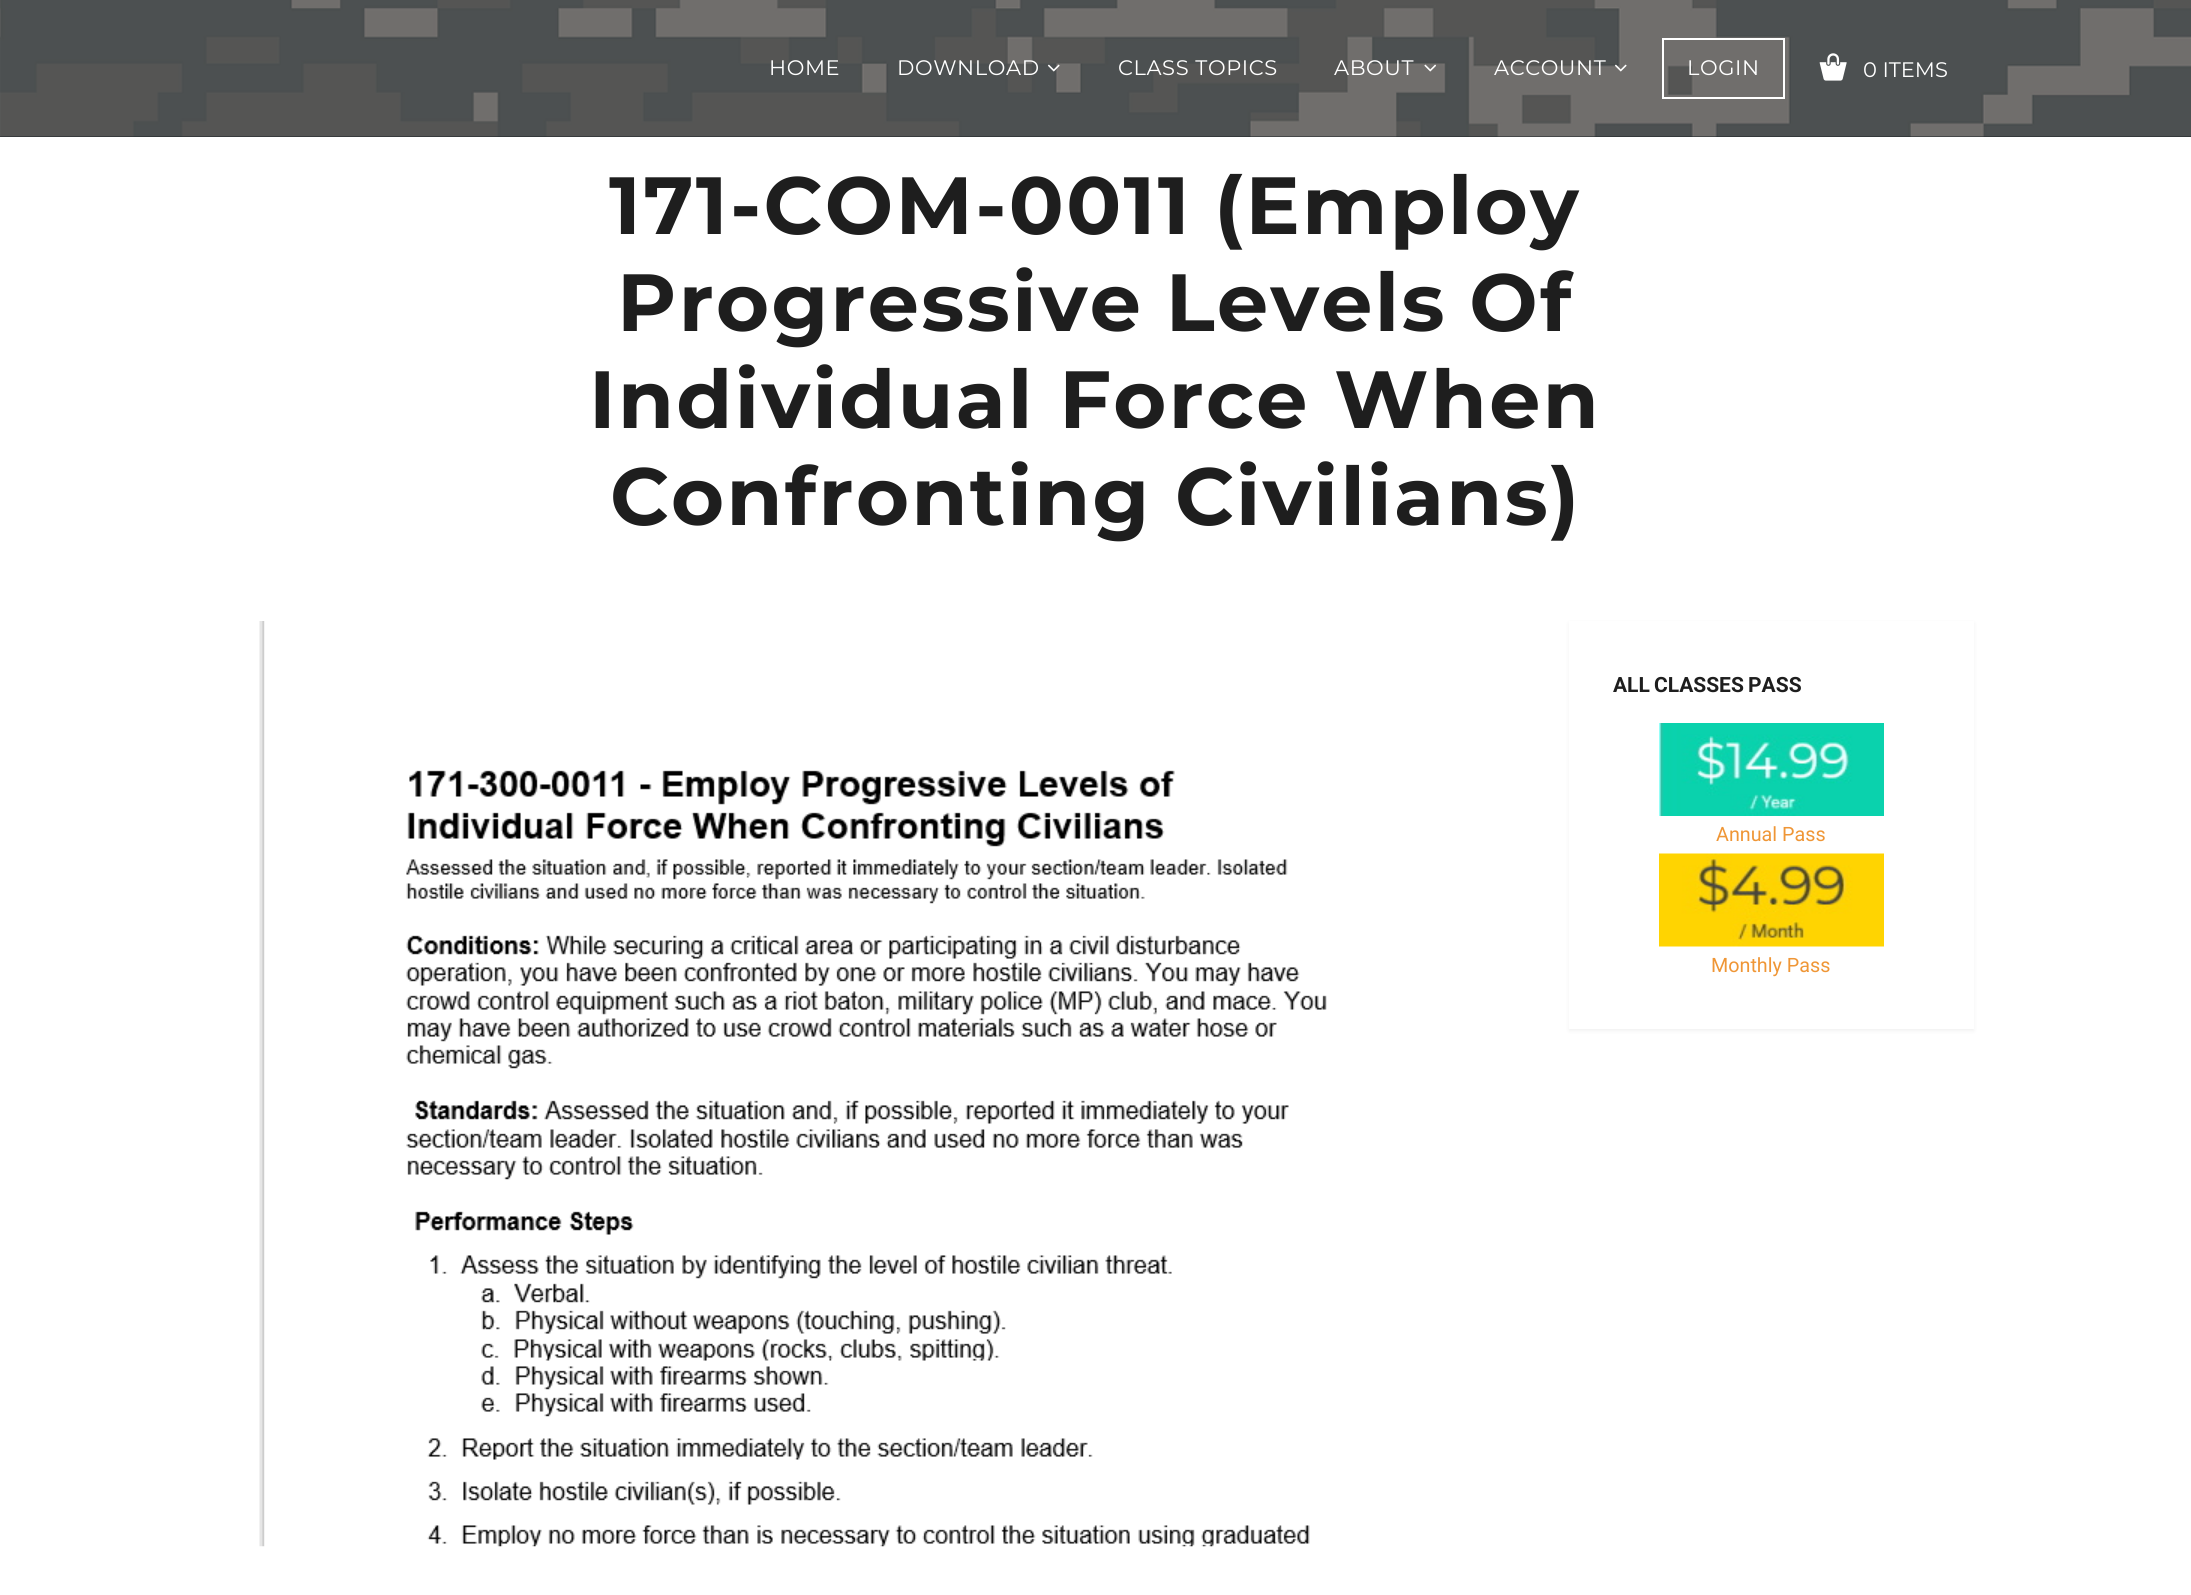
#include <cairo.h>
#include <math.h>
#include <stddef.h>

static cairo_t *c;
static void C(unsigned color){cairo_set_source_rgb(c, (color >> 16) / 255.0, (color >> 8 & 255) / 255.0, (color & 255) / 255.0);}
static void F(const char *family, double size, int italic, int bold){cairo_select_font_face(c, family, italic ? CAIRO_FONT_SLANT_ITALIC : CAIRO_FONT_SLANT_NORMAL,bold ? CAIRO_FONT_WEIGHT_BOLD : CAIRO_FONT_WEIGHT_NORMAL);cairo_set_font_size(c, size);}
static void T(double x, double y, const char *s){cairo_move_to(c, x, y);cairo_show_text(c, s);}
static void L(double x, double y, const char *s, double letter, double word){cairo_move_to(c, x, y);while (*s) {char ch[5] = {0};int n = 0;do ch[n++] = *s++; while ((*s & 0xC0) == 0x80);cairo_show_text(c, ch);cairo_rel_move_to(c, letter + word * (*ch == ' '), 0);}}
static void R(double x, double y, double w, double h){cairo_rectangle(c, x, y, w, h);cairo_fill(c);}
static void Q(double x, double y, double w, double h, double r){cairo_new_sub_path(c);cairo_arc(c, x + w - r, y + h - r, r, 0, M_PI / 2);cairo_arc(c, x + r, y + h - r, r, M_PI / 2, M_PI);cairo_arc(c, x + r, y + r, r, M_PI, 1.5 * M_PI);cairo_arc(c, x + w - r, y + r, r, 1.5 * M_PI, 2 * M_PI);cairo_close_path(c);}
static void S(double x, double y, double w, double h, double r, double blur, double alpha){cairo_push_group_with_content(c, CAIRO_CONTENT_ALPHA);cairo_set_operator(c, CAIRO_OPERATOR_SOURCE);for (int i = 15; i >= -15 && fmin(w, h) + blur * i / 3 > 0; i -= 2) {double e = blur * i / 6;cairo_set_source_rgba(c, 0, 0, 0, alpha * erfc((i - 1) / 8.5) / 2);Q(x - e, y - e, w + 2 * e, h + 2 * e, fmax(0, fmin(r + e + blur * .6, fmin(w, h) / 2 + e)));cairo_fill(c);}cairo_pattern_t *soft = cairo_pop_group(c);cairo_mask(c, soft);cairo_pattern_destroy(soft);}
static void I(const char *path, double x, double y, double w, double h){cairo_surface_t *image = cairo_image_surface_create_from_png(path);cairo_save(c);cairo_set_source_surface(c, image, x, y);cairo_rectangle(c, x, y, w, h);cairo_fill(c);cairo_restore(c);cairo_surface_destroy(image);}
int main(void) {
cairo_surface_t *surface = cairo_image_surface_create(CAIRO_FORMAT_RGB24, 2191, 1595);
c = cairo_create(surface);
cairo_font_options_t *options = cairo_font_options_create();
cairo_font_options_set_hint_metrics(options, CAIRO_HINT_METRICS_OFF);
cairo_font_options_set_hint_style(options, CAIRO_HINT_STYLE_NONE);
cairo_set_font_options(c, options);
cairo_set_miter_limit(c, 4);
C(0xffffff);
cairo_paint(c);
C(0x1c2326);
R(0,136,2191,1);
I("1.png",0,0,2191,137);
F("Montserrat",21,0,0);
C(0xffffff);
L(769,75,"HOME",.6,0);
L(897,75,"DOWNLOAD",.6,0);
I("2.png",1047,64,13,8);
L(1118,75,"CLASS TOPICS",.6,0);
L(1334,75,"ABOUT",.6,0);
I("3.png",1424,64,12,8);
L(1494,75,"ACCOUNT",.6,0);
I("4.png",1614,64,13,8);
cairo_rectangle(c,1663,39,121,59);
cairo_stroke(c);
L(1687,75,"LOGIN",.6,0);
I("5.png",1819,53,28,28);
T(1863,77,"0 ITEMS");
F("Montserrat",81,0,1);
C(0x1e1e1e);
L(609,234,"171-COM-0011 (Employ",2.4,-3);
L(617,331,"Progressive Levels Of",2.4,-3);
L(589,428,"Individual Force When",2.4,-1);
L(610,525,"Confronting Civilians)",2.4,-2);
I("6.png",259,621,1068,926);
cairo_save(c);
cairo_set_fill_rule(c,CAIRO_FILL_RULE_EVEN_ODD);
cairo_new_path(c);
cairo_move_to(c,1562,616);
cairo_line_to(c,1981,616);
cairo_line_to(c,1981,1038);
cairo_line_to(c,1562,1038);
cairo_close_path(c);
cairo_move_to(c,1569,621);
cairo_line_to(c,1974,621);
cairo_line_to(c,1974,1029);
cairo_line_to(c,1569,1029);
cairo_close_path(c);
cairo_clip(c);
C(0x000000);
S(1569,623,405,408,0,2,.06);
cairo_restore(c);
F("Roboto",21,0,1);
L(1613,692,"ALL CLASSES PASS",0,-1);
I("7.png",1659,723,225,93);
F("Roboto",19.75,0,0);
C(0xef9636);
T(1716,841,"Annual Pass");
I("8.png",1659,853,225,94);
T(1711,972,"Monthly Pass");
cairo_surface_write_to_png(surface, "o.png");
cairo_font_options_destroy(options);
cairo_destroy(c);
cairo_surface_destroy(surface);
return 0;
}
